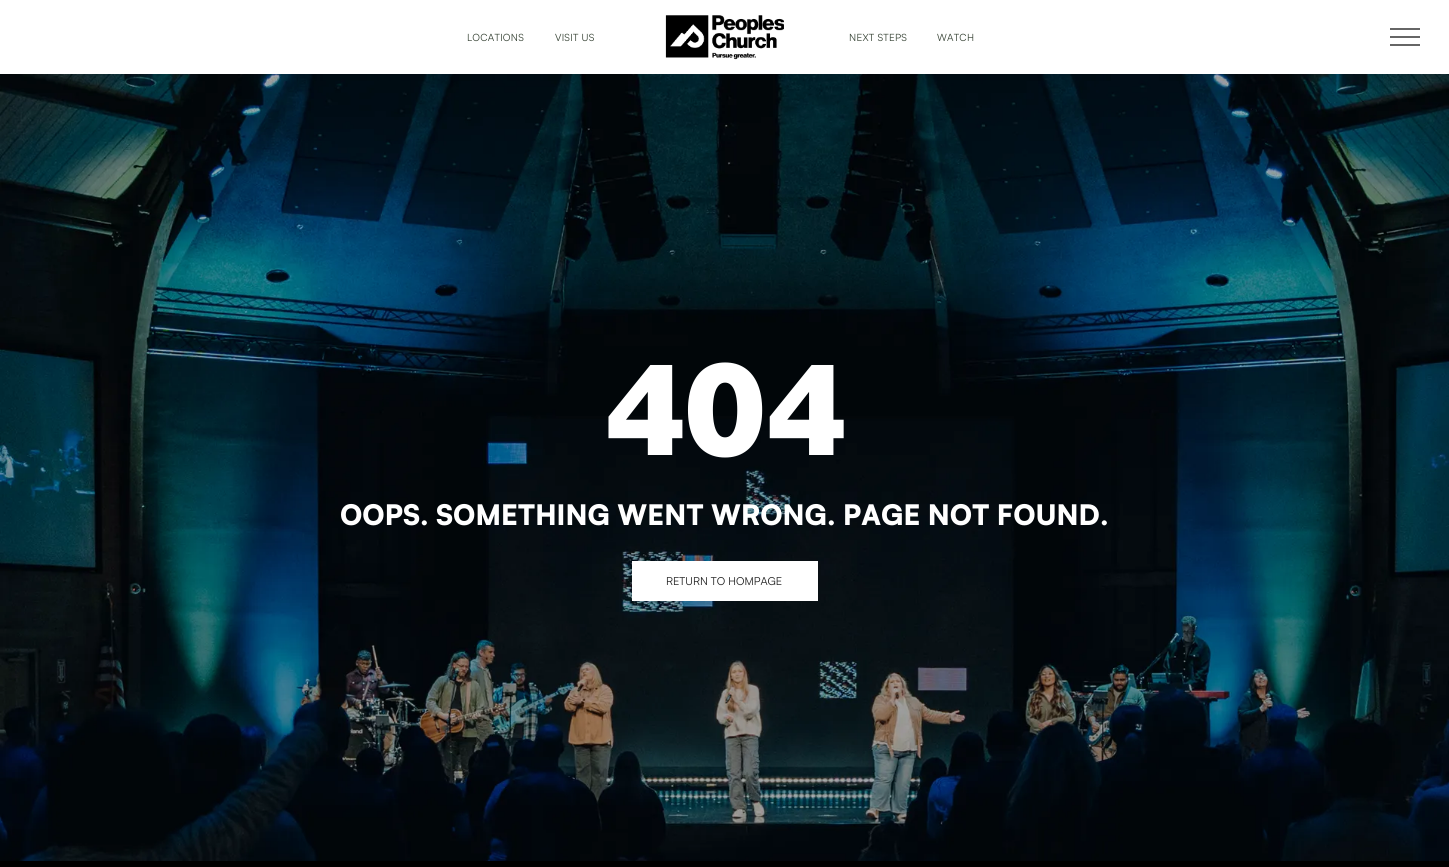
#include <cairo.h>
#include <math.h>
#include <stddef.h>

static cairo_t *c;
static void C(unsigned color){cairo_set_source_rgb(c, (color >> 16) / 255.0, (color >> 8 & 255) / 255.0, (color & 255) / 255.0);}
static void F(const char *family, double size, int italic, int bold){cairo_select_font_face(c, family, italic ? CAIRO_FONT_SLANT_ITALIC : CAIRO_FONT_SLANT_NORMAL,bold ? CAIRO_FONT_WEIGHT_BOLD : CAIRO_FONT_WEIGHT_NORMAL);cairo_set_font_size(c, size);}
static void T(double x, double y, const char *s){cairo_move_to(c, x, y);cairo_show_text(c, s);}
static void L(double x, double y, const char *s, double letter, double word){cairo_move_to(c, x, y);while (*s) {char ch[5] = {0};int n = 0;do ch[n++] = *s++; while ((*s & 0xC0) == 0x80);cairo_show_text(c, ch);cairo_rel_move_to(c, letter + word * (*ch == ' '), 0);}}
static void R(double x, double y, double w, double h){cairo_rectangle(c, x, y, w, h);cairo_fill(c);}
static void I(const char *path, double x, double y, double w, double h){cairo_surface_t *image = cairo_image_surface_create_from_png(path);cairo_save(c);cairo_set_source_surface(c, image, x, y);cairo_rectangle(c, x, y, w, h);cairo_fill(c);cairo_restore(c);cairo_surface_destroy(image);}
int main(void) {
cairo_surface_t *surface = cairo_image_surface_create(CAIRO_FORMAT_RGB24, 1449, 867);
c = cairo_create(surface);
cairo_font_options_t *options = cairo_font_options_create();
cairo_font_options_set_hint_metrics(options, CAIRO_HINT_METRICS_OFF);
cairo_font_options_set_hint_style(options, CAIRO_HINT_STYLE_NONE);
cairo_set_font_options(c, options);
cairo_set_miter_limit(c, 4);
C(0xffffff);
cairo_paint(c);
F("Satoshi",10,0,0);
C(0x384436);
L(467,41,"LOCATIONS",.25,0);
L(555,41,"VISIT US",.25,0);
I("1.png",665,15,119,45);
L(849,41,"NEXT STEPS",.25,0);
L(937,41,"WATCH",.25,0);
C(0x666666);
R(1390,28,30,2);
R(1390,36,30,2);
R(1390,44,30,2);
I("2.png",0,74,1449,787);
F("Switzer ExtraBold",140,0,0);
C(0xffffff);
T(604,455,"404");
F("Satoshi Black",28,0,0);
T(340,525,"OOPS. SOMETHING WENT WRONG. PAGE NOT FOUND.");
R(632,561,186,40);
F("Satoshi",11,0,0);
C(0x232323);
T(666,585,"RETURN TO HOMPAGE");
C(0x000000);
R(0,861,1449,6);
cairo_surface_write_to_png(surface, "o.png");
cairo_font_options_destroy(options);
cairo_destroy(c);
cairo_surface_destroy(surface);
return 0;
}
